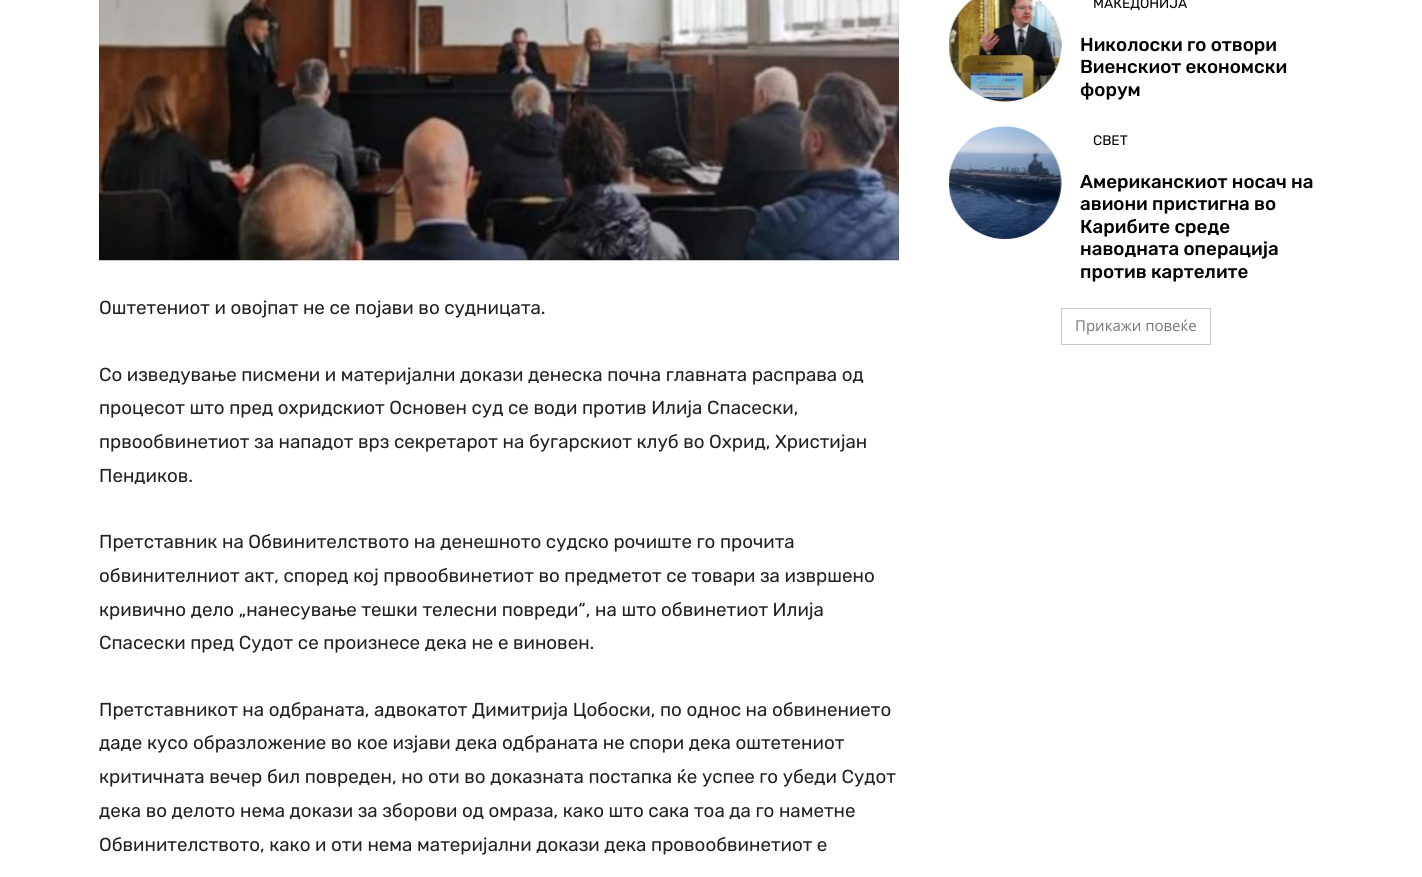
#include <cairo.h>
#include <math.h>
#include <stddef.h>

static cairo_t *c;
static void C(unsigned color){cairo_set_source_rgb(c, (color >> 16) / 255.0, (color >> 8 & 255) / 255.0, (color & 255) / 255.0);}
static void F(const char *family, double size, int italic, int bold){cairo_select_font_face(c, family, italic ? CAIRO_FONT_SLANT_ITALIC : CAIRO_FONT_SLANT_NORMAL,bold ? CAIRO_FONT_WEIGHT_BOLD : CAIRO_FONT_WEIGHT_NORMAL);cairo_set_font_size(c, size);}
static void T(double x, double y, const char *s){cairo_move_to(c, x, y);cairo_show_text(c, s);}
static void I(const char *path, double x, double y, double w, double h){cairo_surface_t *image = cairo_image_surface_create_from_png(path);cairo_save(c);cairo_set_source_surface(c, image, x, y);cairo_rectangle(c, x, y, w, h);cairo_fill(c);cairo_restore(c);cairo_surface_destroy(image);}
int main(void) {
cairo_surface_t *surface = cairo_image_surface_create(CAIRO_FORMAT_RGB24, 1422, 877);
c = cairo_create(surface);
cairo_font_options_t *options = cairo_font_options_create();
cairo_font_options_set_hint_metrics(options, CAIRO_HINT_METRICS_OFF);
cairo_font_options_set_hint_style(options, CAIRO_HINT_STYLE_NONE);
cairo_set_font_options(c, options);
cairo_set_miter_limit(c, 4);
C(0xffffff);
cairo_paint(c);
I("1.png",949,0,113,102);
F("Rubik",13.75,0,0);
C(0x000000);
T(1093,8,"МАКЕДОНИЈА");
F("Rubik Medium",18.75,0,0);
T(1080,51,"Николоски го отвори");
T(1080,73,"Виенскиот економски");
T(1080,96,"форум");
I("2.png",949,126,113,113);
F("Rubik",13.75,0,0);
T(1093,145,"СВЕТ");
F("Rubik Medium",18.75,0,0);
T(1080,188,"Американскиот носач на");
T(1080,210,"авиони пристигна во");
T(1080,233,"Карибите среде");
T(1080,255,"наводната операција");
T(1080,278,"против картелите");
cairo_rectangle(c,1061.5,308.5,149,36);
C(0xc9c9c9);
cairo_set_line_width(c,1);
cairo_stroke(c);
F("Open Sans",15,0,0);
C(0x767676);
T(1075,331,"Прикажи повеќе");
I("3.png",99,0,800,261);
F("Rubik",18.75,0,0);
C(0x222222);
T(99,314,"Оштетениот и овојпат не се појави во судницата.");
T(99,381,"Со изведување писмени и материјални докази денеска почна главната расправа од");
T(99,414,"процесот што пред охридскиот Основен суд се води против Илија Спасески,");
T(99,448,"првообвинетиот за нападот врз секретарот на бугарскиот клуб во Охрид, Христијан");
T(99,482,"Пендиков.");
T(99,548,"Претставник на Обвинителството на денешното судско рочиште го прочита");
T(99,582,"обвинителниот акт, според кој првообвинетиот во предметот се товари за извршено");
T(99,616,"кривично дело „нанесување тешки телесни повреди“, на што обвинетиот Илија");
T(99,649,"Спасески пред Судот се произнесе дека не е виновен.");
T(99,716,"Претставникот на одбраната, адвокатот Димитрија Цобоски, по однос на обвинението");
T(99,749,"даде кусо образложение во кое изјави дека одбраната не спори дека оштетениот");
T(99,783,"критичната вечер бил повреден, но оти во доказната постапка ќе успее го убеди Судот");
T(99,817,"дека во делото нема докази за зборови од омраза, како што сака тоа да го наметне");
T(99,851,"Обвинителството, како и оти нема материјални докази дека провообвинетиот е");
cairo_surface_write_to_png(surface, "o.png");
cairo_font_options_destroy(options);
cairo_destroy(c);
cairo_surface_destroy(surface);
return 0;
}
